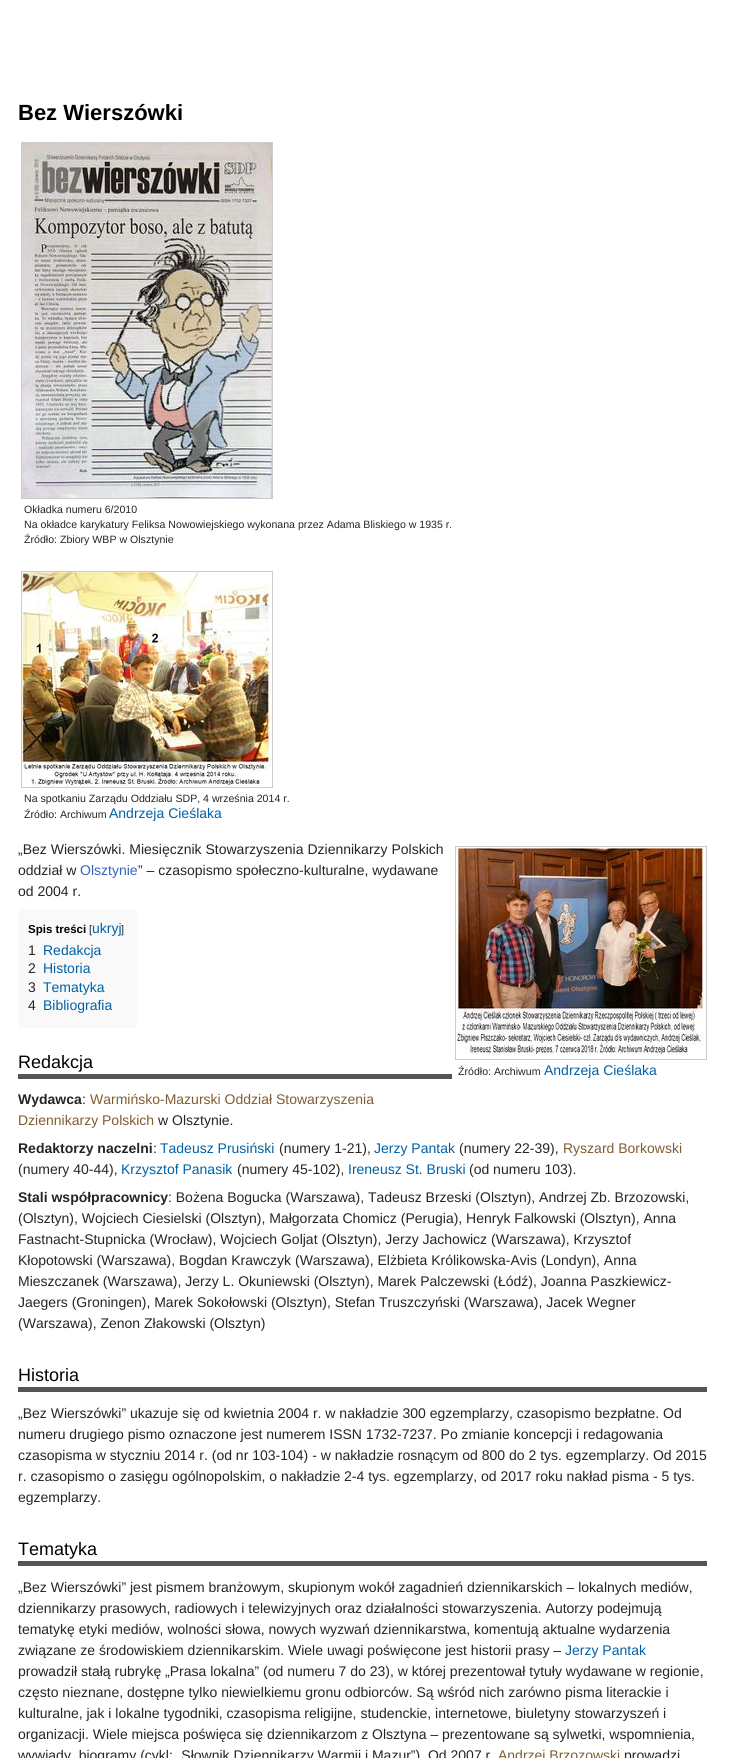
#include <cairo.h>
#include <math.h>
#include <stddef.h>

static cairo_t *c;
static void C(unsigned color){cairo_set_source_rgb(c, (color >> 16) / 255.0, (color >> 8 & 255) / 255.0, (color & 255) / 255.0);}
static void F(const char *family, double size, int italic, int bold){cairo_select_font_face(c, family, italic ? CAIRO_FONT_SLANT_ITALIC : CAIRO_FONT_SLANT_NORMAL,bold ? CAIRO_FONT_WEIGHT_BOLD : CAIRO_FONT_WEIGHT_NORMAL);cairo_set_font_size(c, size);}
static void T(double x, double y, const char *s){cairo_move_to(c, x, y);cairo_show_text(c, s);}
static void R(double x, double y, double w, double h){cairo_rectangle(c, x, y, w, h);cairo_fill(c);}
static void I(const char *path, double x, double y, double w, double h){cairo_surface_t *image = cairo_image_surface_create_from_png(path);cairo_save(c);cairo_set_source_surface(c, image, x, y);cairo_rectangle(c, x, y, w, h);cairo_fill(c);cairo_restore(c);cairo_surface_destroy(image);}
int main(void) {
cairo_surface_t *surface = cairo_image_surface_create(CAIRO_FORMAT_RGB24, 741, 1758);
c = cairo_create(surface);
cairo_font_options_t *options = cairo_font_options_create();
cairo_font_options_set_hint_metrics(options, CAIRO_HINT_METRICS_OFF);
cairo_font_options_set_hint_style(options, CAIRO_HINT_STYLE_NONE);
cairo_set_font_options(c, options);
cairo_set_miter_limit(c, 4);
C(0xffffff);
cairo_paint(c);
F("Liberation Sans",22,0,1);
C(0x000000);
T(18,120,"Bez Wierszówki");
cairo_rectangle(c,21.5,142.5,251,356);
C(0xcccccc);
cairo_set_line_width(c,1);
cairo_stroke(c);
I("1.png",22,143,250,355);
F("Liberation Sans",10.6,0,0);
C(0x252525);
T(24,513,"Okładka numeru 6/2010");
T(24,528,"Na okładce karykatury Feliksa Nowowiejskiego wykonana przez Adama Bliskiego w 1935 r.");
T(24,543,"Źródło: Zbiory WBP w Olsztynie");
cairo_rectangle(c,21.5,571.5,251,216);
C(0xcccccc);
cairo_stroke(c);
I("2.png",22,572,250,215);
C(0x252525);
T(24,802,"Na spotkaniu Zarządu Oddziału SDP, 4 września 2014 r.");
T(24,818,"Źródło: Archiwum");
F("Liberation Sans",14,0,0);
C(0x0061a8);
T(109,818,"Andrzeja Cieślaka");
C(0x252525);
T(18,854,"„Bez Wierszówki. Miesięcznik Stowarzyszenia Dziennikarzy Polskich");
T(18,875,"oddział w");
C(0x3366bb);
T(80,875,"Olsztynie");
C(0x252525);
T(138,875,"” – czasopismo społeczno-kulturalne, wydawane");
T(18,896,"od 2004 r.");
C(0xf9f9f9);
R(18,909,119,119);
F("Liberation Sans",11.5,0,1);
C(0x000000);
T(28,933,"Spis treści");
F("Liberation Sans",11,0,0);
C(0x252525);
T(89,933,"[");
F("Liberation Sans",14,0,0);
C(0x0061a8);
T(92,933,"ukryj");
F("Liberation Sans",11,0,0);
C(0x252525);
T(121,933,"]");
F("Liberation Sans",14,0,0);
T(28,955,"1");
C(0x0061a8);
T(43,955,"Redakcja");
C(0x252525);
T(28,973,"2");
C(0x0061a8);
T(43,973,"Historia");
C(0x252525);
T(28,992,"3");
C(0x0061a8);
T(43,992,"Tematyka");
C(0x252525);
T(28,1010,"4");
C(0x0061a8);
T(43,1010,"Bibliografia");
C(0x585453);
R(18,1074,434,5);
F("Liberation Sans",18,0,0);
C(0x000000);
T(18,1068,"Redakcja");
cairo_rectangle(c,455.5,846.5,251,213);
C(0xcccccc);
cairo_stroke(c);
I("3.png",456,847,250,208);
F("Liberation Sans",10.6,0,0);
C(0x252525);
T(458,1075,"Źródło: Archiwum");
F("Liberation Sans",14,0,0);
C(0x0061a8);
T(544,1075,"Andrzeja Cieślaka");
F("Liberation Sans",14,0,1);
C(0x252525);
T(18,1104,"Wydawca");
F("Liberation Sans",14,0,0);
T(82,1104,":");
C(0x805d30);
T(90,1104,"Warmińsko-Mazurski Oddział Stowarzyszenia");
T(18,1125,"Dziennikarzy Polskich");
C(0x252525);
T(158,1125,"w Olsztynie.");
F("Liberation Sans",14,0,1);
T(18,1153,"Redaktorzy naczelni");
F("Liberation Sans",14,0,0);
T(153,1153,":");
C(0x0061a8);
T(160,1153,"Tadeusz Prusiński");
C(0x252525);
T(279,1153,"(numery 1-21),");
C(0x0061a8);
T(374,1153,"Jerzy Pantak");
C(0x252525);
T(459,1153,"(numery 22-39),");
C(0x805d30);
T(563,1153,"Ryszard Borkowski");
C(0x252525);
T(18,1174,"(numery 40-44),");
C(0x0061a8);
T(121,1174,"Krzysztof Panasik");
C(0x252525);
T(237,1174,"(numery 45-102),");
C(0x0061a8);
T(348,1174,"Ireneusz St. Bruski");
C(0x252525);
T(469,1174,"(od numeru 103).");
F("Liberation Sans",14,0,1);
T(18,1202,"Stali współpracownicy");
F("Liberation Sans",14,0,0);
T(168,1202,": Bożena Bogucka (Warszawa), Tadeusz Brzeski (Olsztyn), Andrzej Zb. Brzozowski,");
T(18,1223,"(Olsztyn), Wojciech Ciesielski (Olsztyn), Małgorzata Chomicz (Perugia), Henryk Falkowski (Olsztyn), Anna");
T(18,1244,"Fastnacht-Stupnicka (Wrocław), Wojciech Goljat (Olsztyn), Jerzy Jachowicz (Warszawa), Krzysztof");
T(18,1265,"Kłopotowski (Warszawa), Bogdan Krawczyk (Warszawa), Elżbieta Królikowska-Avis (Londyn), Anna");
T(18,1286,"Mieszczanek (Warszawa), Jerzy L. Okuniewski (Olsztyn), Marek Palczewski (Łódź), Joanna Paszkiewicz-");
T(18,1307,"Jaegers (Groningen), Marek Sokołowski (Olsztyn), Stefan Truszczyński (Warszawa), Jacek Wegner");
T(18,1328,"(Warszawa), Zenon Złakowski (Olsztyn)");
C(0x585453);
R(18,1387,689,5);
F("Liberation Sans",18,0,0);
C(0x000000);
T(18,1381,"Historia");
F("Liberation Sans",14,0,0);
C(0x252525);
T(18,1418,"„Bez Wierszówki” ukazuje się od kwietnia 2004 r. w nakładzie 300 egzemplarzy, czasopismo bezpłatne. Od");
T(18,1439,"numeru drugiego pismo oznaczone jest numerem ISSN 1732-7237. Po zmianie koncepcji i redagowania");
T(18,1460,"czasopisma w styczniu 2014 r. (od nr 103-104) - w nakładzie rosnącym od 800 do 2 tys. egzemplarzy. Od 2015");
T(18,1481,"r. czasopismo o zasięgu ogólnopolskim, o nakładzie 2-4 tys. egzemplarzy, od 2017 roku nakład pisma - 5 tys.");
T(18,1502,"egzemplarzy.");
C(0x585453);
R(18,1561,689,5);
F("Liberation Sans",18,0,0);
C(0x000000);
T(18,1555,"Tematyka");
F("Liberation Sans",14,0,0);
C(0x252525);
T(18,1592,"„Bez Wierszówki” jest pismem branżowym, skupionym wokół zagadnień dziennikarskich – lokalnych mediów,");
T(18,1613,"dziennikarzy prasowych, radiowych i telewizyjnych oraz działalności stowarzyszenia. Autorzy podejmują");
T(18,1634,"tematykę etyki mediów, wolności słowa, nowych wyzwań dziennikarstwa, komentują aktualne wydarzenia");
T(18,1655,"związane ze środowiskiem dziennikarskim. Wiele uwagi poświęcone jest historii prasy –");
C(0x0061a8);
T(565,1655,"Jerzy Pantak");
C(0x252525);
T(18,1676,"prowadził stałą rubrykę „Prasa lokalna” (od numeru 7 do 23), w której prezentował tytuły wydawane w regionie,");
T(18,1697,"często nieznane, dostępne tylko niewielkiemu gronu odbiorców. Są wśród nich zarówno pisma literackie i");
T(18,1718,"kulturalne, jak i lokalne tygodniki, czasopisma religijne, studenckie, internetowe, biuletyny stowarzyszeń i");
T(18,1739,"organizacji. Wiele miejsca poświęca się dziennikarzom z Olsztyna – prezentowane są sylwetki, wspomnienia,");
T(18,1760,"wywiady, biogramy (cykl: „Słownik Dziennikarzy Warmii i Mazur”). Od 2007 r");
C(0x805d30);
T(498,1760,"Andrzej Brzozowski");
C(0x252525);
T(624,1760,"prowadzi");
cairo_surface_write_to_png(surface, "o.png");
cairo_font_options_destroy(options);
cairo_destroy(c);
cairo_surface_destroy(surface);
return 0;
}
